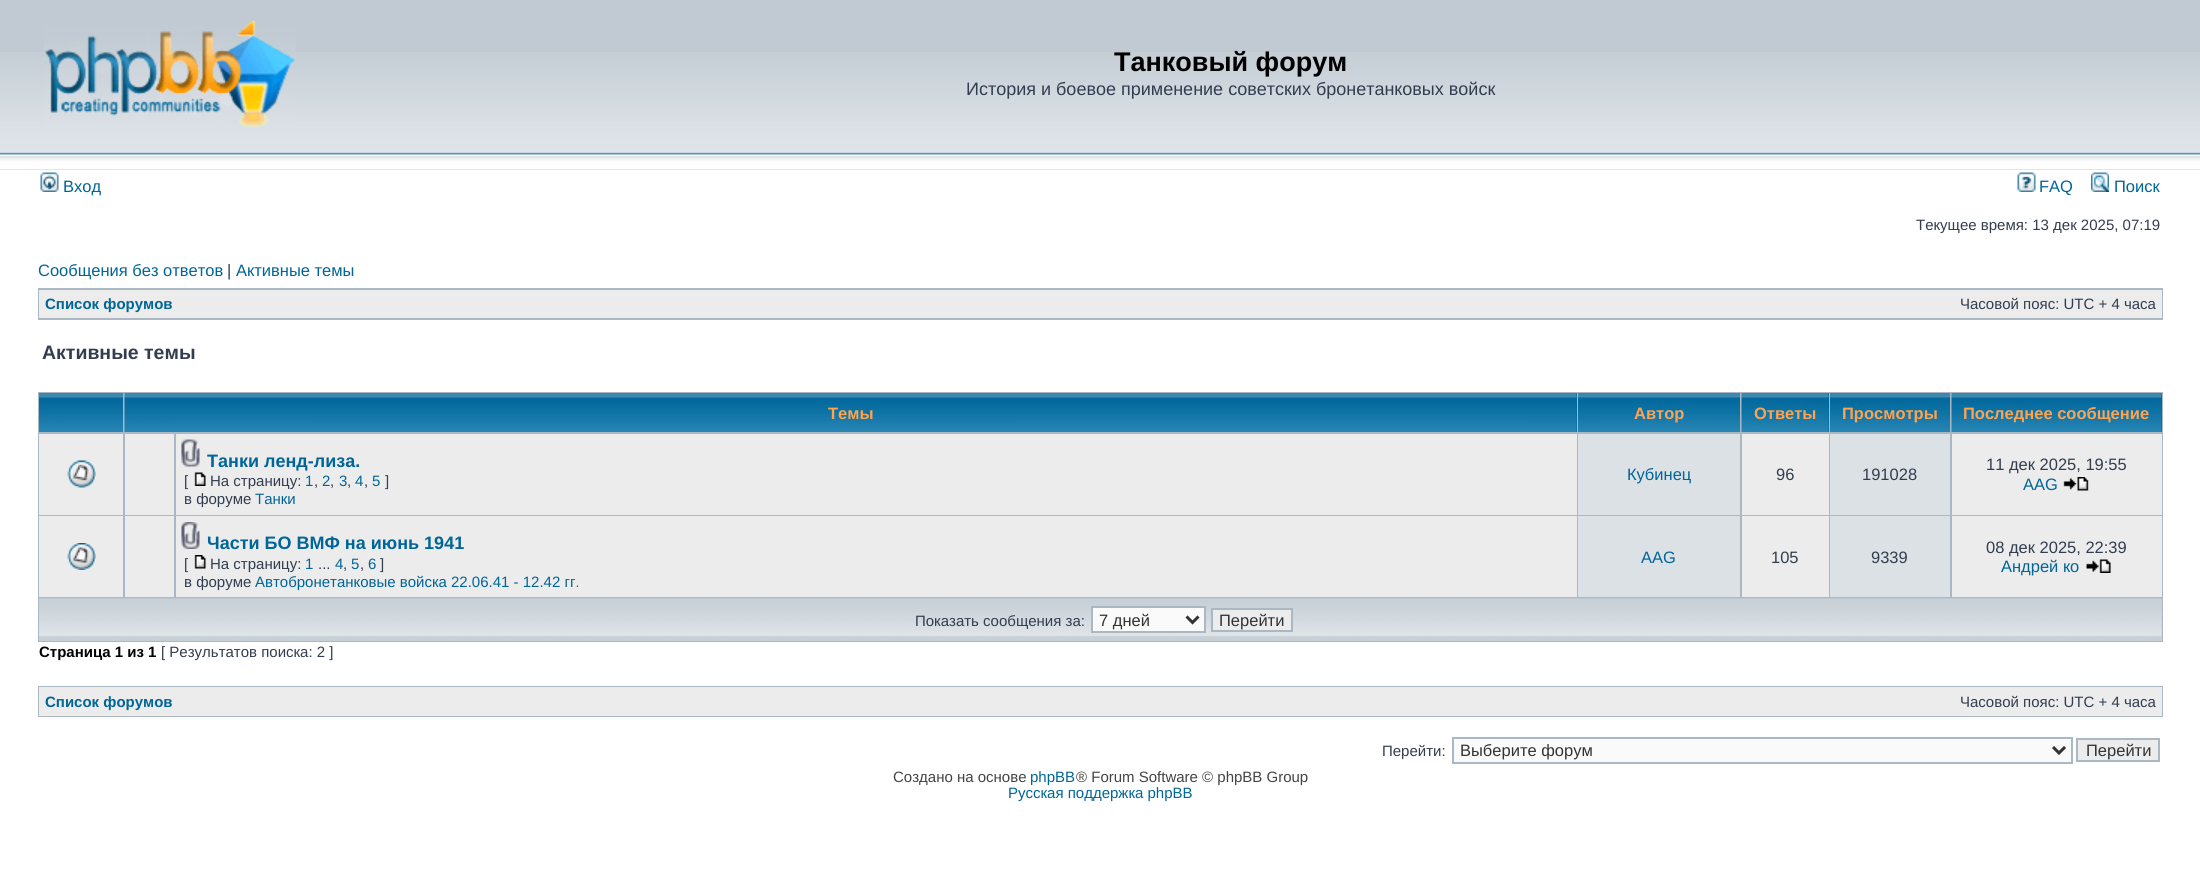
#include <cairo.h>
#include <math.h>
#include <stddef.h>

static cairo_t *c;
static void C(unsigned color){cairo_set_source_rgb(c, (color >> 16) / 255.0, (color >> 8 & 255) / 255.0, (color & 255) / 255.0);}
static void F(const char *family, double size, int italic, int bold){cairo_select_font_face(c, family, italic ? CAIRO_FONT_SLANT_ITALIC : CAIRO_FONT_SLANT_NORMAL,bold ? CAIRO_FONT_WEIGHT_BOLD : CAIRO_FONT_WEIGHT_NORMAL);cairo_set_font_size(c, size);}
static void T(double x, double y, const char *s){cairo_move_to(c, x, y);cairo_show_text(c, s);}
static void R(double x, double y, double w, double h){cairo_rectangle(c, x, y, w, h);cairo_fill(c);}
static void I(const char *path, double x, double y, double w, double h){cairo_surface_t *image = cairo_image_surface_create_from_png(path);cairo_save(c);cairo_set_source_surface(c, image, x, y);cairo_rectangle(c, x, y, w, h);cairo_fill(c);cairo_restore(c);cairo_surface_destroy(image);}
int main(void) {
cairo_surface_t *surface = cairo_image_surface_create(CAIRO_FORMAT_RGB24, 2200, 882);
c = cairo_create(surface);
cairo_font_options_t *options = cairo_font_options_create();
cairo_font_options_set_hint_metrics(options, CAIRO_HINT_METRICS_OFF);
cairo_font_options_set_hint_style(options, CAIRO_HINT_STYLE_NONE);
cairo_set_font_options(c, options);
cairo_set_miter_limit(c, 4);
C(0xffffff);
cairo_paint(c);
C(0xc1cad2);
R(0,0,2200,170);
I("1.png",0,52,2200,118);
I("2.png",44,20,252,108);
F("Liberation Sans",27,0,1);
C(0x000000);
T(1114,71,"Танковый форум");
F("Liberation Sans",18,0,0);
C(0x323d4f);
T(966,95,"История и боевое применение советских бронетанковых войск");
I("3.png",40,172,19,20);
F("Liberation Sans",16.5,0,0);
C(0x006597);
T(63,192,"Вход");
I("4.png",2017,172,19,20);
T(2039,192,"FAQ");
I("5.png",2091,172,18,20);
T(2114,192,"Поиск");
F("Liberation Sans",15,0,0);
C(0x323d4f);
T(1916,230,"Текущее время: 13 дек 2025, 07:19");
F("Liberation Sans",16.5,0,0);
C(0x006597);
T(38,276,"Сообщения без ответов");
C(0x323d4f);
T(227,276,"|");
C(0x006597);
T(236,276,"Активные темы");
C(0xa9b8c2);
R(38,288,2125,32);
C(0xececec);
R(39,290,2123,28);
F("Liberation Sans",15,0,1);
C(0x006597);
T(45,309,"Список форумов");
F("Liberation Sans",15,0,0);
C(0x323d4f);
T(1960,309,"Часовой пояс: UTC + 4 часа");
F("Liberation Sans",19.5,0,1);
T(42,359,"Активные темы");
C(0xa9b8c2);
R(38,392,2125,250);
I("6.png",39,393,84,39);
C(0x006699);
R(1576,393,1,39);
I("7.png",124,393,1453,39);
F("Liberation Sans",16.5,0,1);
C(0xffa34f);
T(828,419,"Темы");
I("8.png",1578,393,162,39);
T(1634,419,"Автор");
C(0x006699);
R(1828,393,1,39);
I("9.png",1741,393,88,39);
C(0xffa34f);
T(1754,419,"Ответы");
I("10.png",1830,393,120,39);
T(1842,419,"Просмотры");
C(0x006699);
R(2161,393,1,39);
I("11.png",1951,393,211,39);
C(0xffa34f);
T(1963,419,"Последнее сообщение");
C(0xececec);
R(39,434,84,81);
I("12.png",67,460,29,28);
R(125,434,49,81);
R(176,434,1401,81);
I("13.png",181,439,19,28);
F("Liberation Sans",18,0,1);
C(0x006597);
T(207,467,"Танки ленд-лиза.");
F("Liberation Sans",15,0,0);
C(0x323d4f);
T(184,486,"[");
I("14.png",194,472,12,14);
T(210,486,"На страницу:");
C(0x006597);
T(305,486,"1");
C(0x323d4f);
T(314,486,",");
C(0x006597);
T(322,486,"2");
C(0x323d4f);
T(330,486,",");
C(0x006597);
T(339,486,"3");
C(0x323d4f);
T(347,486,",");
C(0x006597);
T(355,486,"4");
C(0x323d4f);
T(364,486,",");
C(0x006597);
T(372,486,"5");
C(0x323d4f);
T(385,486,"]");
T(184,504,"в форуме");
C(0x006597);
T(255,504,"Танки");
C(0xdce1e5);
R(1578,434,162,81);
F("Liberation Sans",16.5,0,0);
C(0x006597);
T(1627,480,"Кубинец");
C(0xececec);
R(1742,434,87,81);
C(0x323d4f);
T(1776,480,"96");
C(0xdce1e5);
R(1830,434,120,81);
C(0x323d4f);
T(1862,480,"191028");
C(0xececec);
R(1952,434,210,81);
C(0x323d4f);
T(1986,470,"11 дек 2025, 19:55");
C(0x006597);
T(2023,490,"AAG");
I("15.png",2063,477,26,14);
C(0xececec);
R(39,516,84,81);
I("16.png",67,543,29,27);
R(125,516,49,81);
R(176,516,1401,81);
I("17.png",181,522,19,27);
F("Liberation Sans",18,0,1);
C(0x006597);
T(207,549,"Части БО ВМФ на июнь 1941");
F("Liberation Sans",15,0,0);
C(0x323d4f);
T(184,569,"[");
I("18.png",194,555,12,14);
T(210,569,"На страницу:");
C(0x006597);
T(305,569,"1");
C(0x323d4f);
T(318,569,"...");
C(0x006597);
T(335,569,"4");
C(0x323d4f);
T(343,569,",");
C(0x006597);
T(351,569,"5");
C(0x323d4f);
T(360,569,",");
C(0x006597);
T(368,569,"6");
C(0x323d4f);
T(380,569,"]");
T(184,587,"в форуме");
C(0x006597);
T(255,587,"Автобронетанковые войска 22.06.41 - 12.42 гг.");
C(0xdce1e5);
R(1578,516,162,81);
F("Liberation Sans",16.5,0,0);
C(0x006597);
T(1641,563,"AAG");
C(0xececec);
R(1742,516,87,81);
C(0x323d4f);
T(1771,563,"105");
C(0xdce1e5);
R(1830,516,120,81);
C(0x323d4f);
T(1871,563,"9339");
C(0xececec);
R(1952,516,210,81);
C(0x323d4f);
T(1986,553,"08 дек 2025, 22:39");
C(0x006597);
T(2001,572,"Андрей ко");
I("19.png",2086,559,25,14);
C(0xc7d0d7);
R(39,599,2123,42);
I("20.png",39,598,2123,39);
F("Liberation Sans",15,0,0);
C(0x323d4f);
T(915,626,"Показать сообщения за:");
C(0xfafafa);
cairo_rectangle(c,1092,607,113,25);
cairo_fill_preserve(c);
C(0xa9b8c2);
cairo_stroke(c);
cairo_new_path(c);
cairo_move_to(c,1186.5,616.5);
cairo_line_to(c,1192.5,622.5);
cairo_line_to(c,1198.5,616.5);
C(0x333333);
cairo_set_line_width(c,3);
cairo_stroke(c);
F("Liberation Sans",16.5,0,0);
T(1099,626,"7 дней");
C(0xececec);
cairo_rectangle(c,1212,609,80,22);
cairo_fill_preserve(c);
C(0xa9b8c2);
cairo_set_line_width(c,2);
cairo_stroke(c);
C(0x333333);
T(1219,626,"Перейти");
F("Liberation Sans",15,0,1);
C(0x000000);
T(39,657,"Страница 1 из 1");
F("Liberation Sans",15,0,0);
C(0x323d4f);
T(161,657,"[ Результатов поиска: 2 ]");
C(0xa9b8c2);
R(38,686,2125,31);
C(0xececec);
R(39,687,2123,29);
F("Liberation Sans",15,0,1);
C(0x006597);
T(45,707,"Список форумов");
F("Liberation Sans",15,0,0);
C(0x323d4f);
T(1960,707,"Часовой пояс: UTC + 4 часа");
T(1382,756,"Перейти:");
C(0xfafafa);
cairo_rectangle(c,1453,738,619,25);
cairo_fill_preserve(c);
C(0xa9b8c2);
cairo_stroke(c);
cairo_new_path(c);
cairo_move_to(c,2053,747);
cairo_line_to(c,2059,753);
cairo_line_to(c,2065,747);
C(0x333333);
cairo_set_line_width(c,3);
cairo_stroke(c);
F("Liberation Sans",16.5,0,0);
T(1460,756,"Выберите форум");
C(0xececec);
cairo_rectangle(c,2077,739,82,22);
cairo_fill_preserve(c);
C(0xa9b8c2);
cairo_set_line_width(c,2);
cairo_stroke(c);
C(0x333333);
T(2086,756,"Перейти");
F("Liberation Sans",15,0,0);
C(0x444444);
T(893,782,"Создано на основе");
C(0x006597);
T(1030,782,"phpBB");
C(0x444444);
T(1076,782,"® Forum Software © phpBB Group");
C(0x006597);
T(1008,798,"Русская поддержка phpBB");
cairo_surface_write_to_png(surface, "o.png");
cairo_font_options_destroy(options);
cairo_destroy(c);
cairo_surface_destroy(surface);
return 0;
}
